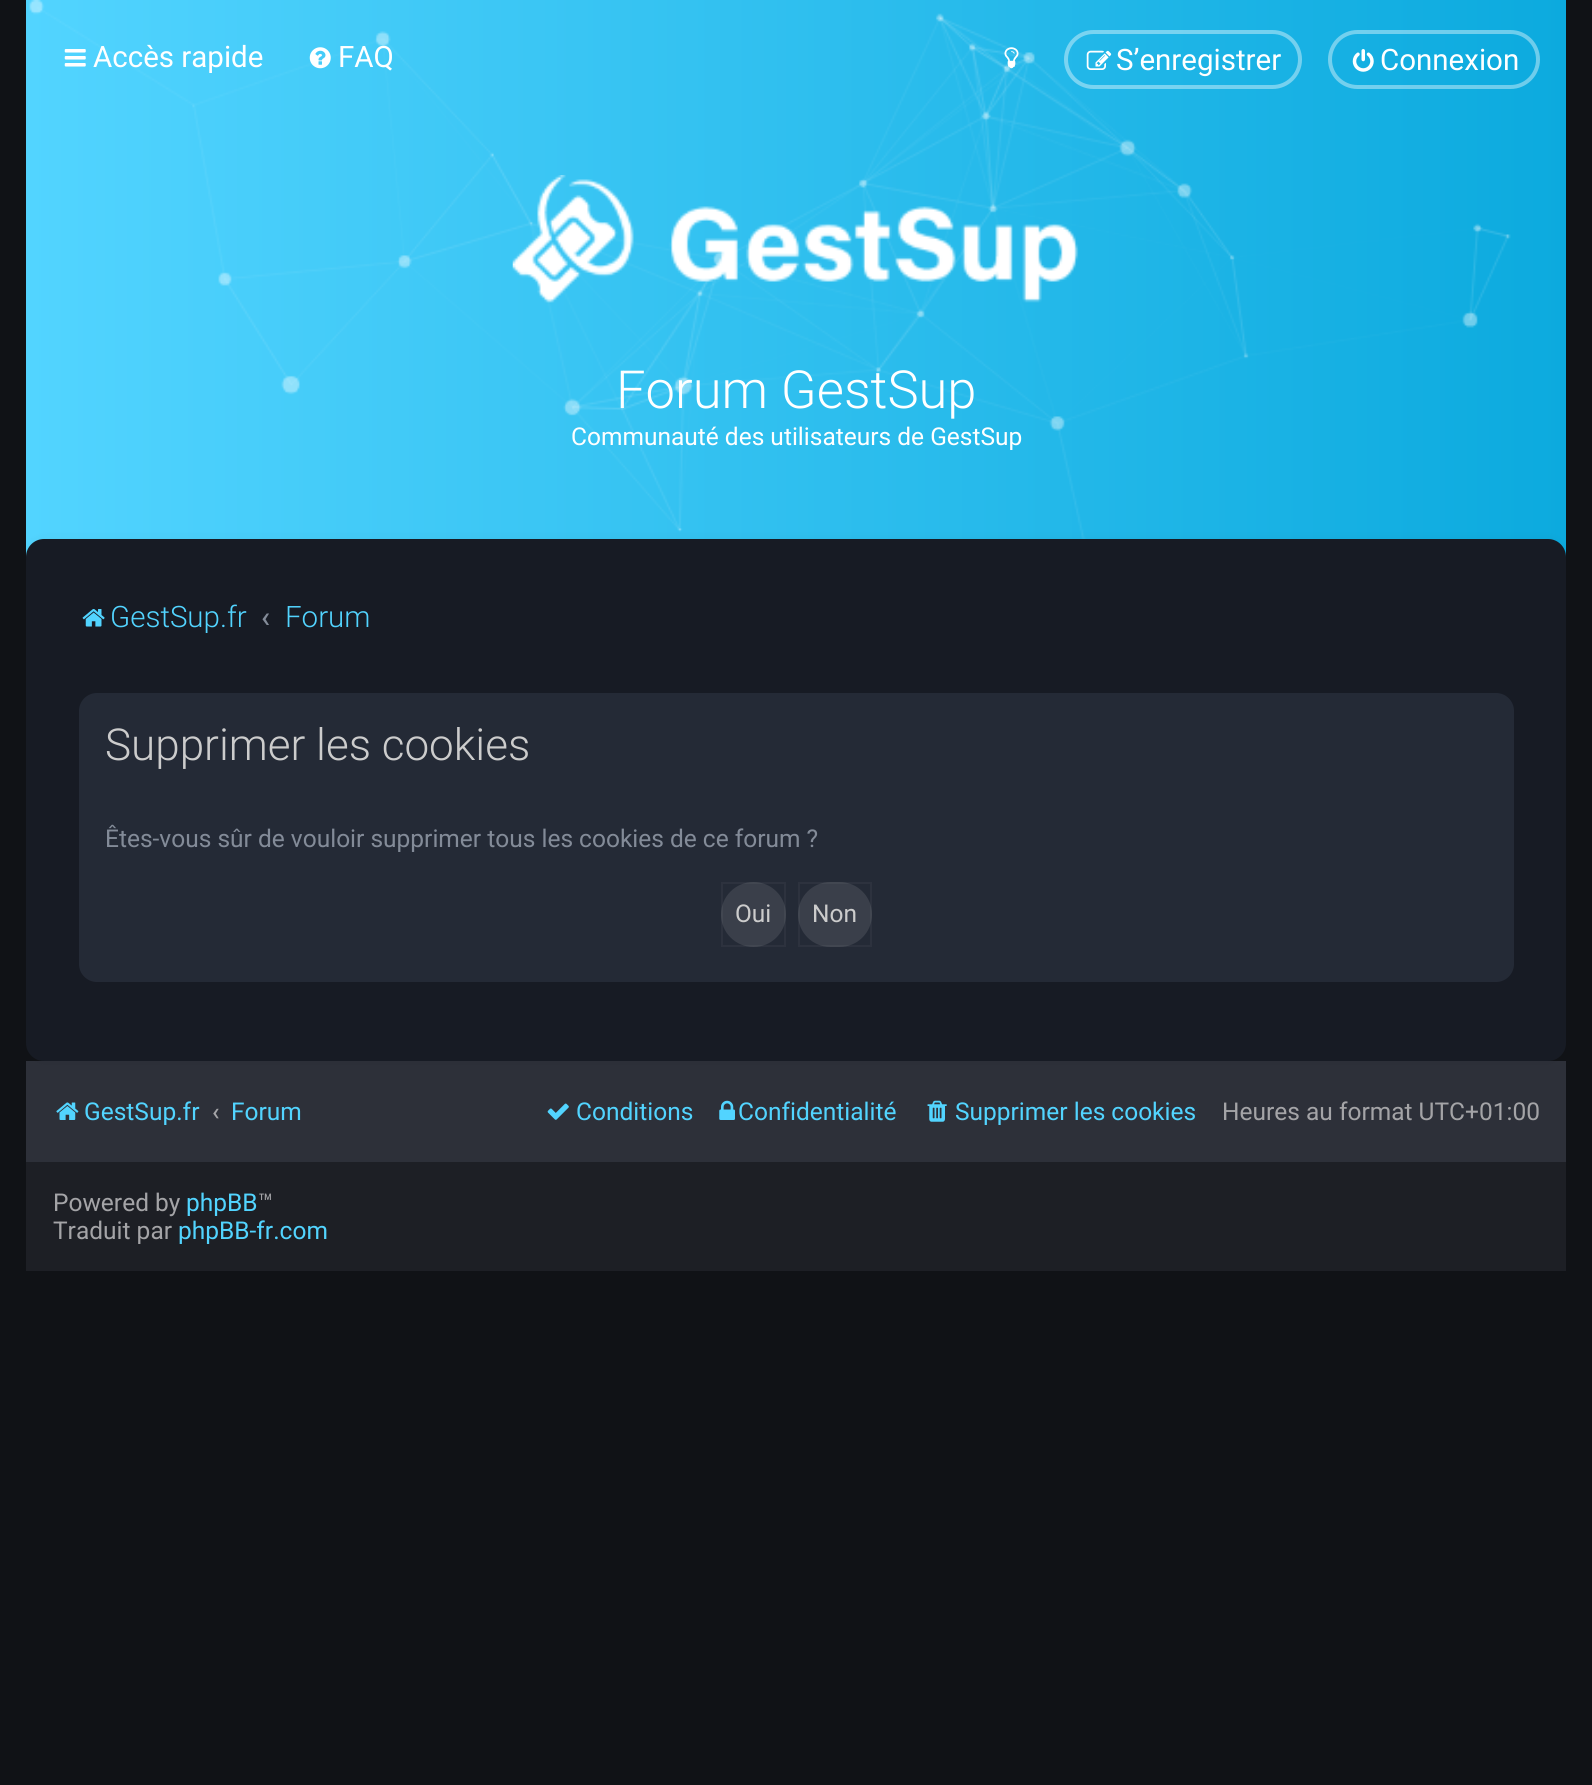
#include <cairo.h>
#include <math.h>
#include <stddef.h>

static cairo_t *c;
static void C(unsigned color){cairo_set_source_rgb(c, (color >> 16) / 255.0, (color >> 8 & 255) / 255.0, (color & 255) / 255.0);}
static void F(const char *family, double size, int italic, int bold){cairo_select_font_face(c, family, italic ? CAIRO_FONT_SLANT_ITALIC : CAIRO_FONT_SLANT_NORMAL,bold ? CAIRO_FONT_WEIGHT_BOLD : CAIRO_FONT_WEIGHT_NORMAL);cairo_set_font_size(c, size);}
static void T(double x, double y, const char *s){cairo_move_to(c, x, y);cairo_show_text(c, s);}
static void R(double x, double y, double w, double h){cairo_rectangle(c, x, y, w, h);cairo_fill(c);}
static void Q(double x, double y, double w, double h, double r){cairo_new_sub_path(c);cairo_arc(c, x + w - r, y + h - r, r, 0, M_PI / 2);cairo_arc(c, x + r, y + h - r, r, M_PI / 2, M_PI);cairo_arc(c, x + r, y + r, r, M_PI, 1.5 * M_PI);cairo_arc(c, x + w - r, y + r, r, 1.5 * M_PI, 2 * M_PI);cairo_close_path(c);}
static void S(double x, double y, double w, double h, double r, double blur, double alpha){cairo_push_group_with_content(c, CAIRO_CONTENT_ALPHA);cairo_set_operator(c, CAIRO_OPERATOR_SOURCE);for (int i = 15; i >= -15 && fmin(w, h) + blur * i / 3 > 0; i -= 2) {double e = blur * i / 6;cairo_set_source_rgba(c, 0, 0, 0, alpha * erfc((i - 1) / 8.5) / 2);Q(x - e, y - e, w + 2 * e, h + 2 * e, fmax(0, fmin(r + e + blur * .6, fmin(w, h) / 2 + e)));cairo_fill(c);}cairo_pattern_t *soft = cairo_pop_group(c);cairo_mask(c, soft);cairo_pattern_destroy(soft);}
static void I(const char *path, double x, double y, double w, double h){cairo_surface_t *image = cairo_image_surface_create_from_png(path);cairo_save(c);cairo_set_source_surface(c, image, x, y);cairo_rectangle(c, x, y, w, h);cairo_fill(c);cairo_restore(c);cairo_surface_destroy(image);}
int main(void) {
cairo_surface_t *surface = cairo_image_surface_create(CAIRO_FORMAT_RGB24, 1592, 1785);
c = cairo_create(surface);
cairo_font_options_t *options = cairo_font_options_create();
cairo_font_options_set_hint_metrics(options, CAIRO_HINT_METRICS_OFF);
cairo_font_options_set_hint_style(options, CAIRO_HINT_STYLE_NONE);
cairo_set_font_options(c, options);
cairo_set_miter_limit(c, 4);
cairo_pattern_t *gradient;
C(0x101216);
cairo_paint(c);
gradient = cairo_pattern_create_linear(26,313,1566,313);
cairo_pattern_add_color_stop_rgba(gradient,0,0.322,0.831,1,1);
cairo_pattern_add_color_stop_rgba(gradient,1,0.047,0.667,0.871,1);
cairo_set_source(c,gradient);
cairo_pattern_destroy(gradient);
R(26,0,1540,557);
I("6.png",29,0,1482,539);
I("1.png",64,49,22,18);
F("Roboto",29.5,0,0);
C(0xffffff);
T(93,67,"Accès rapide");
I("2.png",309,47,22,22);
T(338,67,"FAQ");
I("3.png",1004,47,15,22);
Q(1066,32,234,55,27.5);
cairo_set_source_rgba(c,1,1,1,0.4);
cairo_set_line_width(c,4);
cairo_stroke(c);
I("4.png",1086,50,26,20);
C(0xffffff);
T(1116,70,"S’enregistrer");
Q(1330,32,208,55,27.5);
cairo_set_source_rgba(c,1,1,1,0.4);
cairo_stroke(c);
I("5.png",1352,49,22,23);
C(0xffffff);
T(1380,70,"Connexion");
I("7.png",512,175,567,128);
F("Roboto Light",52.5,0,0);
T(616,408,"Forum GestSup");
F("Roboto",24.5,0,0);
T(571,445,"Communauté des utilisateurs de GestSup");
C(0x2d3039);
R(26,1061,1540,101);
C(0x000000);
S(26,539,1540,522,18,4.5,.05);
C(0x171b24);
Q(26,539,1540,522,18);
cairo_fill(c);
I("8.png",82,609,23,18);
F("Roboto Light",29.5,0,0);
C(0x52d4ff);
T(110,627,"GestSup.fr");
F("Roboto Medium",29.5,0,0);
C(0x838b98);
T(261,627,"‹");
F("Roboto Light",29.5,0,0);
C(0x52d4ff);
T(285,627,"Forum");
C(0x242a36);
Q(79,693,1435,289,18);
cairo_fill(c);
F("Roboto Light",44,0,0);
C(0xcccccc);
T(105,760,"Supprimer les cookies");
F("Roboto",24.5,0,0);
C(0x838b98);
T(105,847,"Êtes-vous sûr de vouloir supprimer tous les cookies de ce forum ?");
C(0x3a3f4a);
cairo_new_path(c);
cairo_arc(c,753.5,914.5,32.5,0,2 * M_PI);
cairo_fill(c);
cairo_rectangle(c,722,883,63,63);
cairo_set_source_rgba(c,1,1,1,0.04);
cairo_set_line_width(c,2);
cairo_stroke(c);
C(0xcccccc);
T(735,922,"Oui");
C(0x3a3f4a);
Q(798,882,74,65,32.5);
cairo_fill(c);
cairo_rectangle(c,799,883,72,63);
cairo_set_source_rgba(c,1,1,1,0.04);
cairo_stroke(c);
C(0xcccccc);
T(812,922,"Non");
I("9.png",56,1102,23,18);
C(0x52d4ff);
T(84,1120,"GestSup.fr");
F("Roboto Medium",24.5,0,0);
C(0xa4a4a7);
T(212,1120,"‹");
F("Roboto",24.5,0,0);
C(0x52d4ff);
T(231,1120,"Forum");
I("10.png",547,1103,22,17);
T(576,1120,"Conditions");
I("11.png",719,1100,16,20);
T(738,1120,"Confidentialité");
I("12.png",927,1100,20,22);
T(955,1120,"Supprimer les cookies");
C(0xa4a4a7);
T(1222,1120,"Heures au format UTC+01:00");
C(0x1d1f25);
R(26,1162,1540,109);
C(0xa4a4a7);
T(53,1211,"Powered by");
C(0x52d4ff);
T(186,1211,"phpBB");
C(0xa4a4a7);
T(258,1211,"™");
T(53,1239,"Traduit par");
C(0x52d4ff);
T(178,1239,"phpBB-fr.com");
cairo_surface_write_to_png(surface, "o.png");
cairo_font_options_destroy(options);
cairo_destroy(c);
cairo_surface_destroy(surface);
return 0;
}
